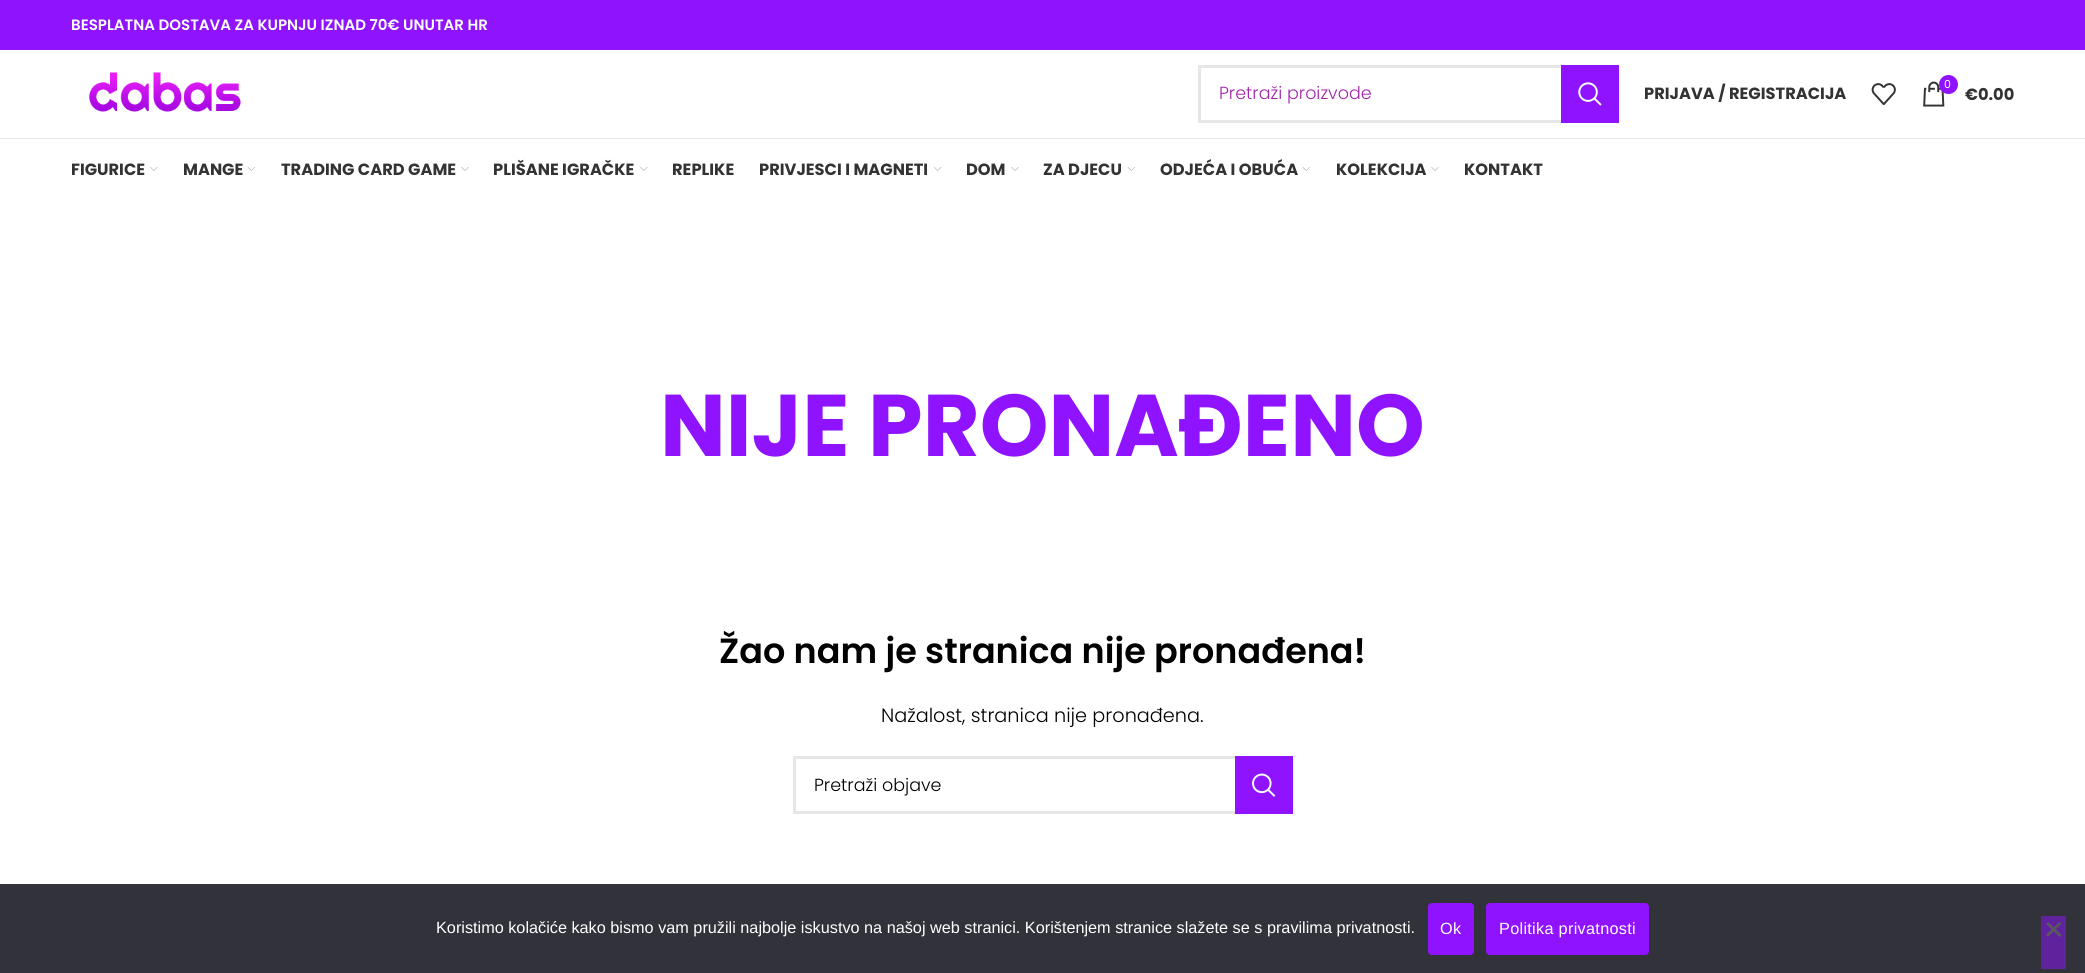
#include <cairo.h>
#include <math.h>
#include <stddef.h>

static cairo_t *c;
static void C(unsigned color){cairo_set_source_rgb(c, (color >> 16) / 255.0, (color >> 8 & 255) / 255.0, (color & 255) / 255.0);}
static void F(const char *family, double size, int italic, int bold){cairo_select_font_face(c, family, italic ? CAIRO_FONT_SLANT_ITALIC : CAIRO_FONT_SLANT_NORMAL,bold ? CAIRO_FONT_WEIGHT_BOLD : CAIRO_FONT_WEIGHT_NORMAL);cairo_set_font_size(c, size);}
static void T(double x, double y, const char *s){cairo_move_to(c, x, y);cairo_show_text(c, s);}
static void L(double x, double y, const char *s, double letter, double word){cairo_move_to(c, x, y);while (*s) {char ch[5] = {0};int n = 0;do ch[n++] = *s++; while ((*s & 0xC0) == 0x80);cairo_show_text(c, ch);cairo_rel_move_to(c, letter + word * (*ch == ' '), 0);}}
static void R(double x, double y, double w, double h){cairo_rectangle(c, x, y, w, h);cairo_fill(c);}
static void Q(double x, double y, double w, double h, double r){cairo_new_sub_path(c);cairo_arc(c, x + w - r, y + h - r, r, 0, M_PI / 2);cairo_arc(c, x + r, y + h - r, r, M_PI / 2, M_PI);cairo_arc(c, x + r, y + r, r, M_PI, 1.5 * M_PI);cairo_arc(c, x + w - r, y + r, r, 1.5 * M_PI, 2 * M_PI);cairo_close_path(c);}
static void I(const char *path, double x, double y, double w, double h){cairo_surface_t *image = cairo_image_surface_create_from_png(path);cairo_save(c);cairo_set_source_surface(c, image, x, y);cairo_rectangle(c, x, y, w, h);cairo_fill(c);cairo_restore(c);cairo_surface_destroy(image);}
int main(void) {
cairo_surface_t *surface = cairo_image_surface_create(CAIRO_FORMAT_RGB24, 2085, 973);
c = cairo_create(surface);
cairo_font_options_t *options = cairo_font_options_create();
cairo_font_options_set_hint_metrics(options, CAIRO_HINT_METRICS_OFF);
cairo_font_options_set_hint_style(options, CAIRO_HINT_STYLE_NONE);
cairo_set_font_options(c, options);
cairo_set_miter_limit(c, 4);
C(0xffffff);
cairo_paint(c);
C(0x9013fe);
R(0,0,2085,50);
F("Poppins SemiBold",15,0,0);
C(0xffffff);
T(71,30,"BESPLATNA DOSTAVA ZA KUPNJU IZNAD 70€ UNUTAR HR");
C(0xe6e6e6);
R(0,138,2085,1);
I("1.png",89,72,152,40);
cairo_rectangle(c,1199.5,66.5,418,55);
cairo_set_line_width(c,3);
cairo_stroke(c);
F("Poppins Light",17.5,0,0);
C(0xa325ac);
T(1219,99,"Pretraži proizvode");
C(0x9013ff);
R(1561,65,58,58);
I("2.png",1578,82,24,24);
F("Poppins",16.25,0,1);
C(0x333333);
T(1644,99,"PRIJAVA / REGISTRACIJA");
I("3.png",1871,83,25,22);
I("4.png",1923,81,22,26);
C(0x9013ff);
cairo_arc(c,1948.5,84.5,9.5,0,2 * M_PI);
cairo_fill(c);
F("Poppins",11,0,0);
C(0xffffff);
T(1944,88,"0");
F("Poppins",16.25,0,1);
C(0x333333);
T(1965,100,"€0.00");
T(71,175,"FIGURICE");
I("5.png",150,167,8,4);
T(183,175,"MANGE");
I("6.png",247,167,8,4);
T(281,175,"TRADING CARD GAME");
I("7.png",461,167,8,4);
T(493,175,"PLIŠANE IGRAČKE");
I("5.png",640,167,8,4);
T(672,175,"REPLIKE");
T(759,175,"PRIVJESCI I MAGNETI");
I("8.png",934,167,8,4);
T(966,175,"DOM");
I("7.png",1011,167,8,4);
T(1043,175,"ZA DJECU");
I("6.png",1127,167,8,4);
T(1160,175,"ODJEĆA I OBUĆA");
I("6.png",1302,167,8,4);
T(1336,175,"KOLEKCIJA");
I("7.png",1431,167,8,4);
T(1464,175,"KONTAKT");
F("Poppins",87.5,0,1);
C(0x9013ff);
T(660,456,"NIJE PRONAĐENO");
F("Poppins SemiBold",35,0,0);
C(0x000000);
T(719,663,"Žao nam je stranica nije pronađena!");
F("Poppins Light",19.25,0,0);
T(881,722,"Nažalost, stranica nije pronađena.");
cairo_rectangle(c,794.5,757.5,497,55);
C(0xe6e6e6);
cairo_stroke(c);
F("Poppins Light",17.5,0,0);
C(0x000000);
T(814,791,"Pretraži objave");
C(0x9013ff);
R(1235,756,58,58);
I("9.png",1252,773,24,24);
C(0x32323a);
R(0,884,2085,89);
F("Liberation Sans",16.25,0,0);
C(0xffffff);
T(436,933,"Koristimo kolačiće kako bismo vam pružili najbolje iskustvo na našoj web stranici. Korištenjem stranice slažete se s pravilima privatnosti.");
C(0x9013ff);
Q(1428,903,46,52,4);
cairo_fill(c);
C(0xffffff);
L(1440,934,"Ok",.3,0);
C(0x9013ff);
Q(1486,903,163,52,4);
cairo_fill(c);
C(0xffffff);
L(1499,934,"Politika privatnosti",.3,0);
C(0x61239d);
R(2041,916,25,53);
C(0x59595d);
cairo_new_path(c);
cairo_move_to(c,2059.5,922);
cairo_line_to(c,2061.5,923.5);
cairo_line_to(c,2048,937);
cairo_line_to(c,2046,935);
cairo_close_path(c);
cairo_fill(c);
cairo_new_path(c);
cairo_move_to(c,2046,923.5);
cairo_line_to(c,2048,922);
cairo_line_to(c,2061.5,935);
cairo_line_to(c,2059.5,937);
cairo_close_path(c);
cairo_fill(c);
cairo_surface_write_to_png(surface, "o.png");
cairo_font_options_destroy(options);
cairo_destroy(c);
cairo_surface_destroy(surface);
return 0;
}
